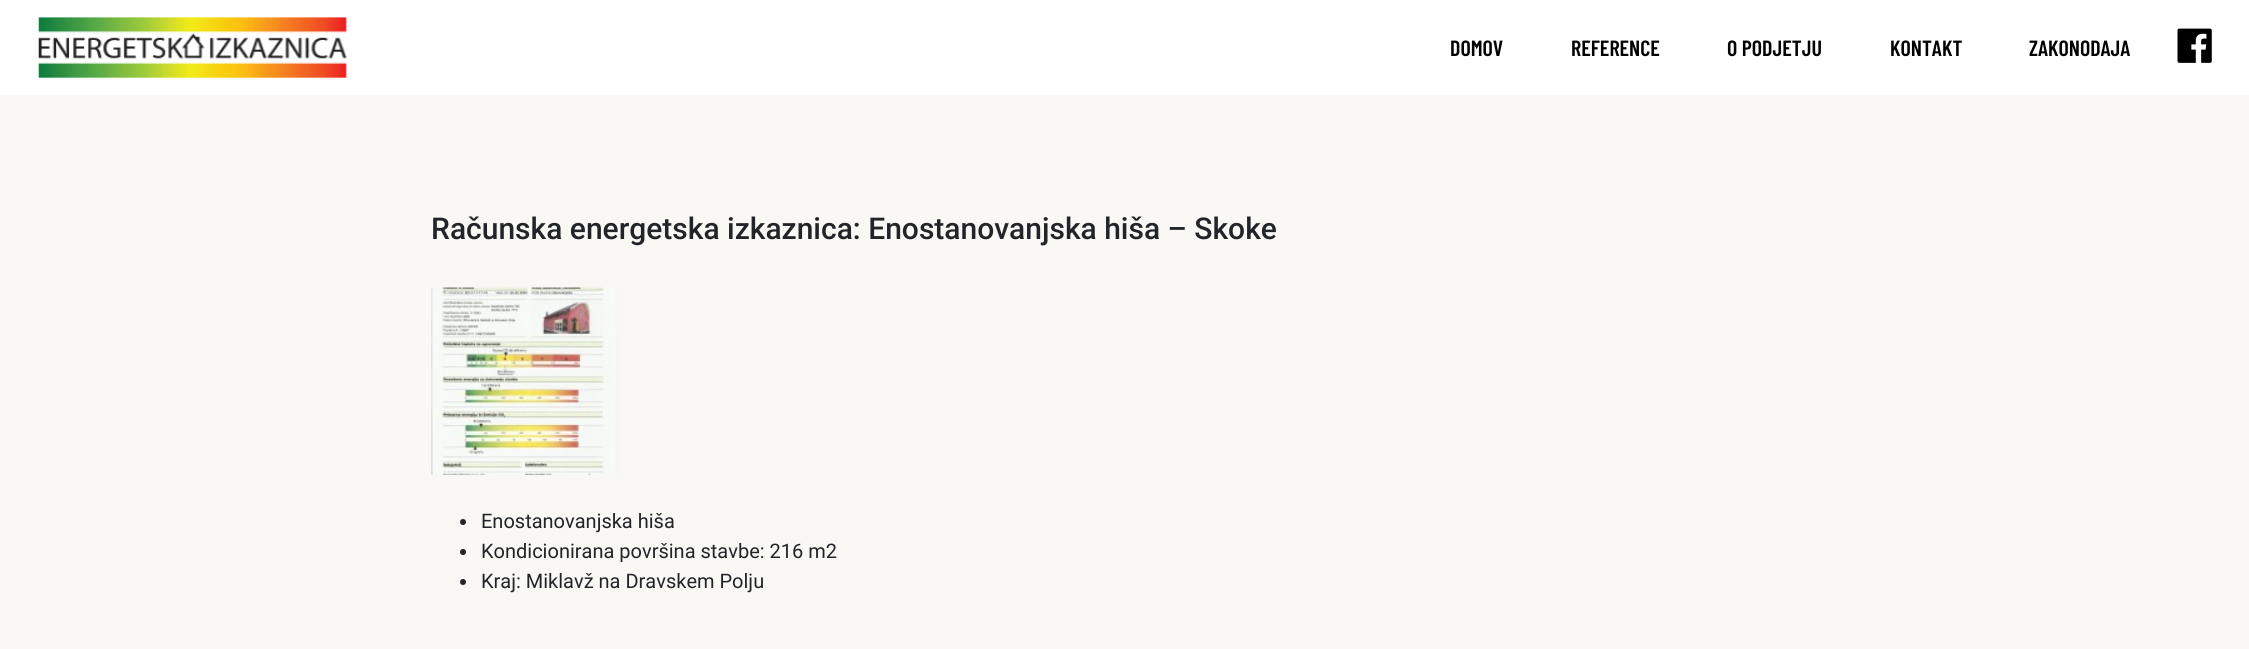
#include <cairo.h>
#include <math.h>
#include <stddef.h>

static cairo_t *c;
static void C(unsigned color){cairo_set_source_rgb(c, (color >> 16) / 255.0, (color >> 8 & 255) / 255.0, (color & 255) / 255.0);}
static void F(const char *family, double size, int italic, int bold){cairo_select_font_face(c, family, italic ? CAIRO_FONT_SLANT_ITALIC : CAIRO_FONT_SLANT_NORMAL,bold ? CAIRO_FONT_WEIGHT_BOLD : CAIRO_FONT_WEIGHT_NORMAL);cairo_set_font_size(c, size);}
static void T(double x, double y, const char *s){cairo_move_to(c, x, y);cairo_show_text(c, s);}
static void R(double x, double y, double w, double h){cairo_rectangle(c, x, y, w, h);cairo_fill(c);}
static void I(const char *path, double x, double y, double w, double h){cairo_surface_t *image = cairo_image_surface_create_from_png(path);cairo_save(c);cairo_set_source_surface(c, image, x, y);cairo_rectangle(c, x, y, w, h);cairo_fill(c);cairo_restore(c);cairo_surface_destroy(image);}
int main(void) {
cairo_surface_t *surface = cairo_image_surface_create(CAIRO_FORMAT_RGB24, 2249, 649);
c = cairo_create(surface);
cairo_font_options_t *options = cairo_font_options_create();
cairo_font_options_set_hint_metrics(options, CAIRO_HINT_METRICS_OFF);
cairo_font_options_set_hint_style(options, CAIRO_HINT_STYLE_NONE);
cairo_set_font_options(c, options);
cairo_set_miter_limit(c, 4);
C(0xfaf8f5);
cairo_paint(c);
C(0xffffff);
R(0,0,2249,95);
I("1.png",38,17,309,61);
F("Barlow Condensed SemiBold",22,0,0);
C(0x000000);
T(1450,56,"DOMOV");
T(1571,56,"REFERENCE");
T(1727,56,"O PODJETJU");
T(1890,56,"KONTAKT");
T(2029,56,"ZAKONODAJA");
I("2.png",2177,28,35,35);
F("Roboto Medium",30,0,0);
C(0x212529);
T(431,239,"Računska energetska izkaznica: Enostanovanjska hiša – Skoke");
I("3.png",431,287,188,188);
cairo_arc(c,463,522,3,0,2 * M_PI);
cairo_fill(c);
F("Roboto",20,0,0);
T(481,528,"Enostanovanjska hiša");
cairo_new_path(c);
cairo_arc(c,463,552,3,0,2 * M_PI);
cairo_fill(c);
T(481,558,"Kondicionirana površina stavbe: 216 m2");
cairo_new_path(c);
cairo_arc(c,463,582,3,0,2 * M_PI);
cairo_fill(c);
T(481,588,"Kraj: Miklavž na Dravskem Polju");
cairo_surface_write_to_png(surface, "o.png");
cairo_font_options_destroy(options);
cairo_destroy(c);
cairo_surface_destroy(surface);
return 0;
}
